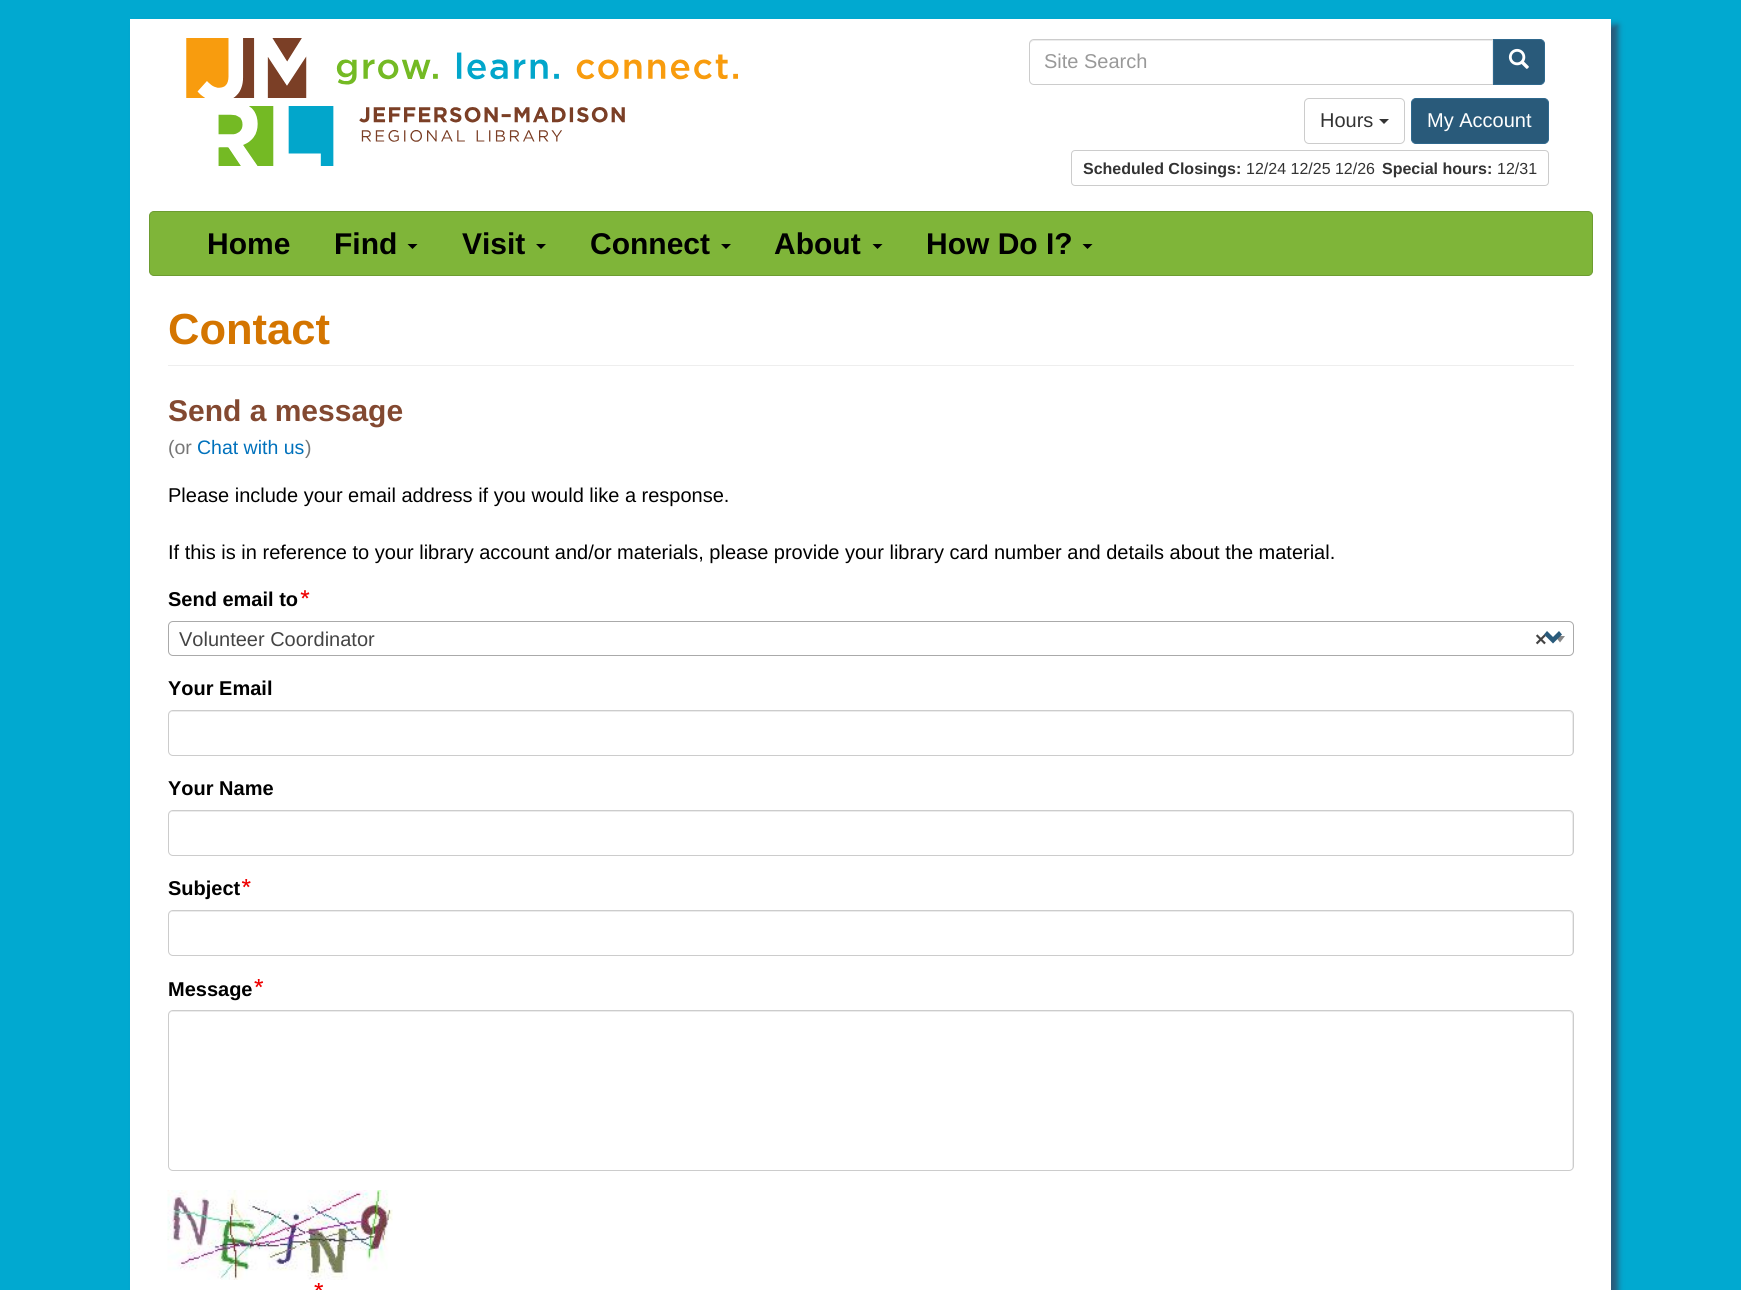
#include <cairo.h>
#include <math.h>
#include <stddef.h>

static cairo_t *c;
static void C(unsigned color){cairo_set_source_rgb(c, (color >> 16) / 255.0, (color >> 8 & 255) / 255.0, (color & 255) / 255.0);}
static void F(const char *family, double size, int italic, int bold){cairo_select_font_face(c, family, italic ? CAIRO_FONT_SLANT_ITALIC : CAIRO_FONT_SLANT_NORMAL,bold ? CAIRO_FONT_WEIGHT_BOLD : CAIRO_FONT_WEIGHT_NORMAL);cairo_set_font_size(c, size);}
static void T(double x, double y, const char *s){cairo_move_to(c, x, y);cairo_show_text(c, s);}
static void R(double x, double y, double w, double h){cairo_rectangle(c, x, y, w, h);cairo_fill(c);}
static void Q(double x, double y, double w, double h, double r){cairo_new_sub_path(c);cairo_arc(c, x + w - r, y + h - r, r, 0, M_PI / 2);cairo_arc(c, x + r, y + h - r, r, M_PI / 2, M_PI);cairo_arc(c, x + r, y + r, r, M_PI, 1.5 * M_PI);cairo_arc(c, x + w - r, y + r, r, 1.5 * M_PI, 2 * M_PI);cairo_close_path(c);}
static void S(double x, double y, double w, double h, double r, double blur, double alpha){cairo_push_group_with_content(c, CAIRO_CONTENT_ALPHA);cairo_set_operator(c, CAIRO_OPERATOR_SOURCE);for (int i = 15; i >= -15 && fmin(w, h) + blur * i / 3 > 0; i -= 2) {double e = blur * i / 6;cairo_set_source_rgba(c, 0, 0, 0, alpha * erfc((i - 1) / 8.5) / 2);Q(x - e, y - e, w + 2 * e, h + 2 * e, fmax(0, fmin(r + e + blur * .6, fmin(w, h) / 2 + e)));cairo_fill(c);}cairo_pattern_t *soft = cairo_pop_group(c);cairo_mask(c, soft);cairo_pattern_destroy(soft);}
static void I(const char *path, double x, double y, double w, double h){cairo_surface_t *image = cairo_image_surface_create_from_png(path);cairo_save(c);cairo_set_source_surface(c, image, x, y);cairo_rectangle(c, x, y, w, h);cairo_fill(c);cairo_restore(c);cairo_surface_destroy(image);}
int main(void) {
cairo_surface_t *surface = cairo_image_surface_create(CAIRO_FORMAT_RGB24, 1741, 1290);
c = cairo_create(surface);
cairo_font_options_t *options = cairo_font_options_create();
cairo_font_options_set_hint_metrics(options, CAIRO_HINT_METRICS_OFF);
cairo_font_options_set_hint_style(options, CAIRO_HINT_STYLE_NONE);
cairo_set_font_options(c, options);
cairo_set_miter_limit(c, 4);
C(0x01a9d0);
cairo_paint(c);
C(0x295a7a);
S(136,25,1482,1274,0,3,1);
C(0xffffff);
R(130,19,1481,1271);
I("1.png",186,38,552,128);
C(0xececec);
cairo_new_path(c);
cairo_move_to(c,1034,41);
cairo_line_to(c,1492,41);
cairo_line_to(c,1492,84);
cairo_line_to(c,1493,84);
cairo_line_to(c,1493,40);
cairo_line_to(c,1034,40);
cairo_curve_to(c,1031,40,1030,42,1030,45);
cairo_curve_to(c,1030,43,1032,41,1034,41);
cairo_close_path(c);
cairo_fill(c);
cairo_new_path(c);
cairo_move_to(c,1034,39.5);
cairo_line_to(c,1493.5,39.5);
cairo_line_to(c,1493.5,84.5);
cairo_line_to(c,1034,84.5);
cairo_curve_to(c,1031.5,84.5,1029.5,82.5,1029.5,80);
cairo_line_to(c,1029.5,44);
cairo_curve_to(c,1029.5,41.5,1031.5,39.5,1034,39.5);
cairo_close_path(c);
C(0xcccccc);
cairo_set_line_width(c,1);
cairo_stroke(c);
F("Liberation Sans",20,0,0);
C(0x999999);
T(1044,68,"Site Search");
C(0x295a7a);
cairo_new_path(c);
cairo_move_to(c,1493.5,39.5);
cairo_line_to(c,1540,39.5);
cairo_curve_to(c,1542.5,39.5,1544.5,41.5,1544.5,44);
cairo_line_to(c,1544.5,80);
cairo_curve_to(c,1544.5,82.5,1542.5,84.5,1540,84.5);
cairo_line_to(c,1493.5,84.5);
cairo_close_path(c);
cairo_fill_preserve(c);
C(0x2f688d);
cairo_stroke(c);
I("2.png",1508,48,21,21);
Q(1304.5,98.5,100,45,4.5);
C(0xcccccc);
cairo_stroke(c);
C(0x333333);
T(1320,127,"Hours");
cairo_new_path(c);
cairo_move_to(c,1379,119);
cairo_line_to(c,1389,119);
cairo_line_to(c,1384,124);
cairo_close_path(c);
cairo_fill(c);
C(0x295a7a);
Q(1411.5,98.5,137,45,4.5);
cairo_fill_preserve(c);
C(0x2f688d);
cairo_stroke(c);
C(0xffffff);
T(1427,127,"My Account");
Q(1071.5,150.5,477,35,3.5);
C(0xcccccc);
cairo_stroke(c);
F("Liberation Sans",16,0,1);
C(0x333333);
T(1083,174,"Scheduled Closings:");
F("Liberation Sans",16,0,0);
T(1246,174,"12/24 12/25 12/26");
F("Liberation Sans",16,0,1);
T(1382,174,"Special hours:");
F("Liberation Sans",16,0,0);
T(1497,174,"12/31");
C(0x7fb539);
Q(149.5,211.5,1443,64,4.5);
cairo_fill_preserve(c);
C(0x6d9c31);
cairo_stroke(c);
F("Liberation Sans",30,0,1);
C(0x000000);
T(207,254,"Home");
T(334,254,"Find");
cairo_new_path(c);
cairo_move_to(c,407.5,244);
cairo_line_to(c,417.5,244);
cairo_line_to(c,412.5,249);
cairo_close_path(c);
cairo_fill(c);
T(462,254,"Visit");
cairo_new_path(c);
cairo_move_to(c,536,244);
cairo_line_to(c,546,244);
cairo_line_to(c,541,249);
cairo_close_path(c);
cairo_fill(c);
T(590,254,"Connect");
cairo_new_path(c);
cairo_move_to(c,721,244);
cairo_line_to(c,731,244);
cairo_line_to(c,726,249);
cairo_close_path(c);
cairo_fill(c);
T(774,254,"About");
cairo_new_path(c);
cairo_move_to(c,872.5,244);
cairo_line_to(c,882.5,244);
cairo_line_to(c,877.5,249);
cairo_close_path(c);
cairo_fill(c);
T(926,254,"How Do I?");
cairo_new_path(c);
cairo_move_to(c,1082.5,244);
cairo_line_to(c,1092.5,244);
cairo_line_to(c,1087.5,249);
cairo_close_path(c);
cairo_fill(c);
C(0xeeeeee);
R(168,365,1406,1);
F("Liberation Sans",43.5,0,1);
C(0xd47500);
T(168,344,"Contact");
F("Liberation Sans",30,0,1);
C(0x834931);
T(168,421,"Send a message");
F("Liberation Sans",19.5,0,0);
C(0x777777);
T(168,454,"(or");
C(0x0071bc);
T(197,454,"Chat with us");
C(0x777777);
T(305,454,")");
F("Liberation Sans",20,0,0);
C(0x000000);
T(168,502,"Please include your email address if you would like a response.");
T(168,559,"If this is in reference to your library account and/or materials, please provide your library card number and details about the material.");
F("Liberation Sans",20,0,1);
T(168,606,"Send email to");
I("3.png",300,590,10,9);
Q(168.5,621.5,1405,34,4.5);
C(0xaaaaaa);
cairo_stroke(c);
F("Liberation Sans",20,0,0);
C(0x444444);
T(179,646,"Volunteer Coordinator");
F("Liberation Sans",20,0,1);
T(1535,646,"×");
C(0x888888);
cairo_new_path(c);
cairo_move_to(c,1555,636);
cairo_line_to(c,1565,636);
cairo_line_to(c,1560,642.5);
cairo_close_path(c);
cairo_fill(c);
C(0x295a7a);
cairo_new_path(c);
cairo_move_to(c,1562,634.5);
cairo_line_to(c,1553,643.5);
cairo_line_to(c,1544,634.5);
cairo_line_to(c,1547,631);
cairo_line_to(c,1553,637);
cairo_line_to(c,1559,631);
cairo_close_path(c);
cairo_fill(c);
C(0x000000);
T(168,695,"Your Email");
C(0xececec);
cairo_new_path(c);
cairo_move_to(c,172,712);
cairo_line_to(c,1569,712);
cairo_curve_to(c,1571,712,1572,714,1572,716);
cairo_line_to(c,1572,754);
cairo_curve_to(c,1573,753,1573,752,1573,751);
cairo_line_to(c,1573,715);
cairo_curve_to(c,1573,713,1571,711,1569,711);
cairo_line_to(c,173,711);
cairo_curve_to(c,171,711,169,713,169,715);
cairo_line_to(c,169,716);
cairo_curve_to(c,169,714,170,712,172,712);
cairo_close_path(c);
cairo_fill(c);
Q(168.5,710.5,1405,45,4.5);
C(0xcccccc);
cairo_stroke(c);
C(0x000000);
T(168,795,"Your Name");
C(0xececec);
cairo_new_path(c);
cairo_move_to(c,172,812);
cairo_line_to(c,1569,812);
cairo_curve_to(c,1571,812,1572,814,1572,816);
cairo_line_to(c,1572,854);
cairo_curve_to(c,1573,853,1573,852,1573,851);
cairo_line_to(c,1573,815);
cairo_curve_to(c,1573,813,1571,811,1569,811);
cairo_line_to(c,173,811);
cairo_curve_to(c,171,811,169,813,169,815);
cairo_line_to(c,169,816);
cairo_curve_to(c,169,814,170,812,172,812);
cairo_close_path(c);
cairo_fill(c);
Q(168.5,810.5,1405,45,4.5);
C(0xcccccc);
cairo_stroke(c);
C(0x000000);
T(168,895,"Subject");
I("4.png",241,879,10,9);
C(0xececec);
cairo_new_path(c);
cairo_move_to(c,172,912);
cairo_line_to(c,1569,912);
cairo_curve_to(c,1571,912,1572,914,1572,916);
cairo_line_to(c,1572,954);
cairo_curve_to(c,1573,953,1573,952,1573,951);
cairo_line_to(c,1573,915);
cairo_curve_to(c,1573,913,1571,911,1569,911);
cairo_line_to(c,173,911);
cairo_curve_to(c,171,911,169,913,169,915);
cairo_line_to(c,169,916);
cairo_curve_to(c,169,914,170,912,172,912);
cairo_close_path(c);
cairo_fill(c);
Q(168.5,910.5,1405,45,4.5);
C(0xcccccc);
cairo_stroke(c);
C(0x000000);
T(168,996,"Message");
I("5.png",254,979,10,9);
C(0xececec);
cairo_new_path(c);
cairo_move_to(c,172,1012);
cairo_line_to(c,1569,1012);
cairo_curve_to(c,1571,1012,1572,1014,1572,1016);
cairo_line_to(c,1572,1169);
cairo_curve_to(c,1573,1168,1573,1167,1573,1166);
cairo_line_to(c,1573,1015);
cairo_curve_to(c,1573,1013,1571,1011,1569,1011);
cairo_line_to(c,173,1011);
cairo_curve_to(c,171,1011,169,1013,169,1015);
cairo_line_to(c,169,1016);
cairo_curve_to(c,169,1014,170,1012,172,1012);
cairo_close_path(c);
cairo_fill(c);
Q(168.5,1010.5,1405,160,4.5);
C(0xcccccc);
cairo_stroke(c);
I("6.png",167,1190,226,90);
I("7.png",314,1283,10,7);
cairo_surface_write_to_png(surface, "o.png");
cairo_font_options_destroy(options);
cairo_destroy(c);
cairo_surface_destroy(surface);
return 0;
}
